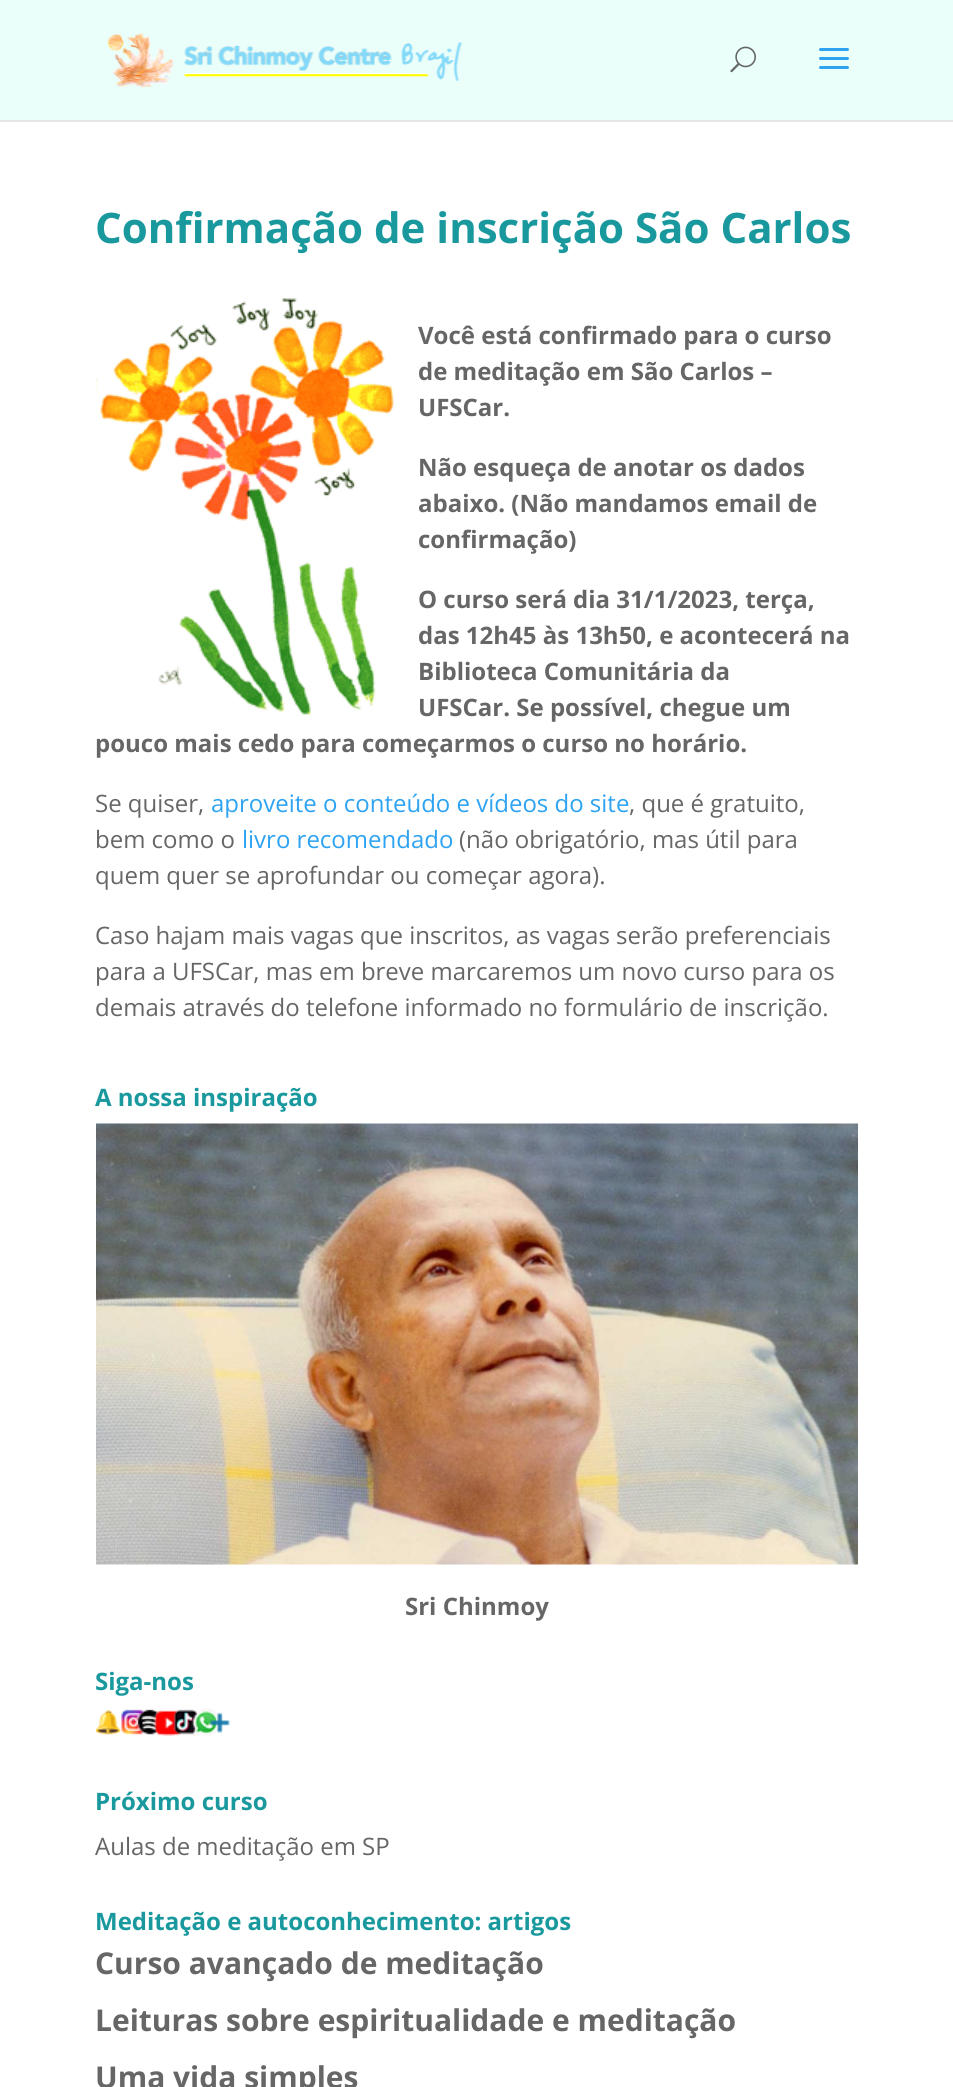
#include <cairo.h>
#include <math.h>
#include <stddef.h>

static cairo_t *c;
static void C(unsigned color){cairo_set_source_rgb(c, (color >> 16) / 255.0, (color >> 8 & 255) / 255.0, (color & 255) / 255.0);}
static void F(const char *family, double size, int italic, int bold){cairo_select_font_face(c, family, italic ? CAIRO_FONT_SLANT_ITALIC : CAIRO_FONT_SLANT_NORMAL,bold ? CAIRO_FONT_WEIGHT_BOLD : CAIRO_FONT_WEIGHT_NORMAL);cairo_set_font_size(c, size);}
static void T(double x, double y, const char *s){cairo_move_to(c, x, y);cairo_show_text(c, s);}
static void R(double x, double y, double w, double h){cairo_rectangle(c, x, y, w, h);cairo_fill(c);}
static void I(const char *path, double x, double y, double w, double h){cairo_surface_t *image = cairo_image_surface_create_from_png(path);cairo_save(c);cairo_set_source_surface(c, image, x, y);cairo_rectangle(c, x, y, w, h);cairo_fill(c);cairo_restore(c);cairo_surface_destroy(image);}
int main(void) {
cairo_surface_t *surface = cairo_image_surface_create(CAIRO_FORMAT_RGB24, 953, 2087);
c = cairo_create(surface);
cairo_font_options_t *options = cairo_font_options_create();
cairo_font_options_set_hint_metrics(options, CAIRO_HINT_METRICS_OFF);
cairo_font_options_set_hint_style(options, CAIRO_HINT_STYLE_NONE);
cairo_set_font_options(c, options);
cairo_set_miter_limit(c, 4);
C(0xffffff);
cairo_paint(c);
C(0xe6e6e6);
R(0,120,953,2);
C(0xeafff9);
R(0,0,953,120);
I("1.png",107,33,356,55);
I("2.png",730,46,26,27);
I("3.png",819,48,30,21);
F("Open Sans",42,0,1);
C(0x19999e);
T(95,243,"Confirmação de inscrição São Carlos");
I("4.png",96,298,298,418);
F("Open Sans",24,0,1);
C(0x666666);
T(418,344,"Você está confirmado para o curso");
T(418,380,"de meditação em São Carlos –");
T(418,416,"UFSCar.");
T(418,476,"Não esqueça de anotar os dados");
T(418,512,"abaixo. (Não mandamos email de");
T(418,548,"confirmação)");
T(418,608,"O curso será dia 31/1/2023, terça,");
T(418,644,"das 12h45 às 13h50, e acontecerá na");
T(418,680,"Biblioteca Comunitária da");
T(418,716,"UFSCar. Se possível, chegue um");
T(95,752,"pouco mais cedo para começarmos o curso no horário.");
F("Open Sans",24,0,0);
T(95,812,"Se quiser,");
C(0x2ea3f2);
T(211,812,"aproveite o conteúdo e vídeos do site");
C(0x666666);
T(629,812,", que é gratuito,");
T(95,848,"bem como o");
C(0x2ea3f2);
T(242,848,"livro recomendado");
C(0x666666);
T(459,848,"(não obrigatório, mas útil para");
T(95,884,"quem quer se aprofundar ou começar agora).");
T(95,944,"Caso hajam mais vagas que inscritos, as vagas serão preferenciais");
T(95,980,"para a UFSCar, mas em breve marcaremos um novo curso para os");
T(95,1016,"demais através do telefone informado no formulário de inscrição.");
F("Open Sans",24,0,1);
C(0x19999e);
T(95,1106,"A nossa inspiração");
I("5.png",96,1123,762,442);
C(0x666666);
T(405,1615,"Sri Chinmoy");
C(0x19999e);
T(95,1690,"Siga-nos");
I("6.png",96,1708,134,28);
T(95,1810,"Próximo curso");
F("Open Sans",24,0,0);
C(0x666666);
T(95,1855,"Aulas de meditação em SP");
F("Open Sans",24,0,1);
C(0x19999e);
T(95,1930,"Meditação e autoconhecimento: artigos");
F("Open Sans",30,0,1);
C(0x666666);
T(95,1974,"Curso avançado de meditação");
T(95,2031,"Leituras sobre espiritualidade e meditação");
T(95,2088,"Uma vida simples");
cairo_surface_write_to_png(surface, "o.png");
cairo_font_options_destroy(options);
cairo_destroy(c);
cairo_surface_destroy(surface);
return 0;
}
